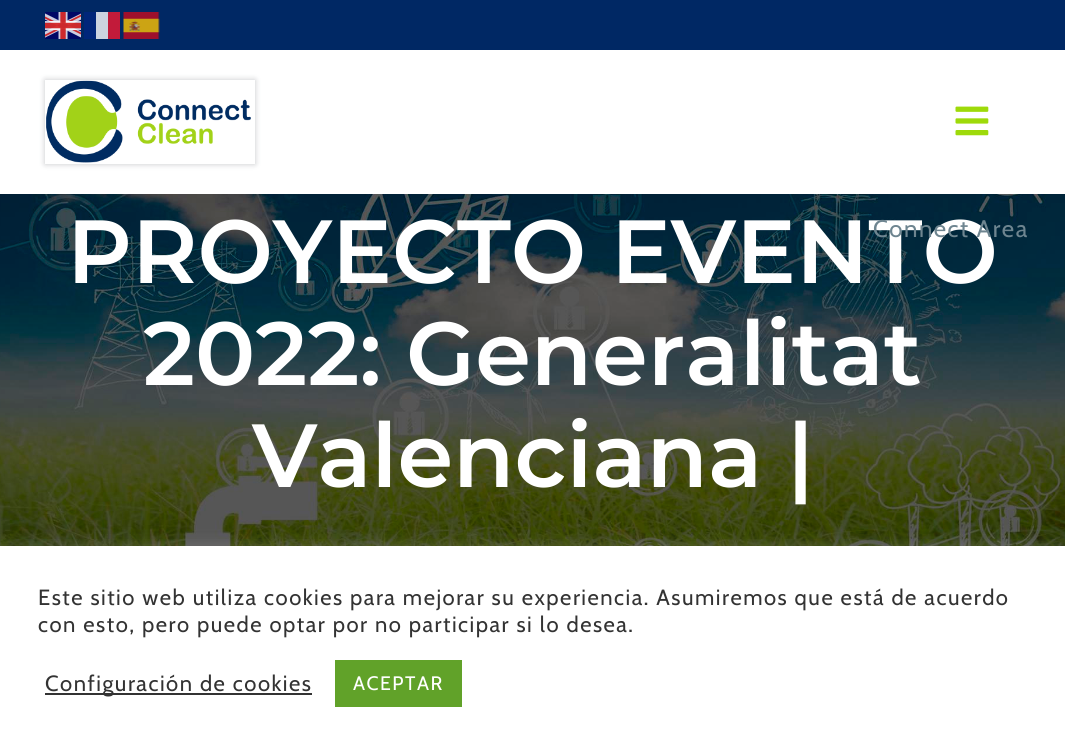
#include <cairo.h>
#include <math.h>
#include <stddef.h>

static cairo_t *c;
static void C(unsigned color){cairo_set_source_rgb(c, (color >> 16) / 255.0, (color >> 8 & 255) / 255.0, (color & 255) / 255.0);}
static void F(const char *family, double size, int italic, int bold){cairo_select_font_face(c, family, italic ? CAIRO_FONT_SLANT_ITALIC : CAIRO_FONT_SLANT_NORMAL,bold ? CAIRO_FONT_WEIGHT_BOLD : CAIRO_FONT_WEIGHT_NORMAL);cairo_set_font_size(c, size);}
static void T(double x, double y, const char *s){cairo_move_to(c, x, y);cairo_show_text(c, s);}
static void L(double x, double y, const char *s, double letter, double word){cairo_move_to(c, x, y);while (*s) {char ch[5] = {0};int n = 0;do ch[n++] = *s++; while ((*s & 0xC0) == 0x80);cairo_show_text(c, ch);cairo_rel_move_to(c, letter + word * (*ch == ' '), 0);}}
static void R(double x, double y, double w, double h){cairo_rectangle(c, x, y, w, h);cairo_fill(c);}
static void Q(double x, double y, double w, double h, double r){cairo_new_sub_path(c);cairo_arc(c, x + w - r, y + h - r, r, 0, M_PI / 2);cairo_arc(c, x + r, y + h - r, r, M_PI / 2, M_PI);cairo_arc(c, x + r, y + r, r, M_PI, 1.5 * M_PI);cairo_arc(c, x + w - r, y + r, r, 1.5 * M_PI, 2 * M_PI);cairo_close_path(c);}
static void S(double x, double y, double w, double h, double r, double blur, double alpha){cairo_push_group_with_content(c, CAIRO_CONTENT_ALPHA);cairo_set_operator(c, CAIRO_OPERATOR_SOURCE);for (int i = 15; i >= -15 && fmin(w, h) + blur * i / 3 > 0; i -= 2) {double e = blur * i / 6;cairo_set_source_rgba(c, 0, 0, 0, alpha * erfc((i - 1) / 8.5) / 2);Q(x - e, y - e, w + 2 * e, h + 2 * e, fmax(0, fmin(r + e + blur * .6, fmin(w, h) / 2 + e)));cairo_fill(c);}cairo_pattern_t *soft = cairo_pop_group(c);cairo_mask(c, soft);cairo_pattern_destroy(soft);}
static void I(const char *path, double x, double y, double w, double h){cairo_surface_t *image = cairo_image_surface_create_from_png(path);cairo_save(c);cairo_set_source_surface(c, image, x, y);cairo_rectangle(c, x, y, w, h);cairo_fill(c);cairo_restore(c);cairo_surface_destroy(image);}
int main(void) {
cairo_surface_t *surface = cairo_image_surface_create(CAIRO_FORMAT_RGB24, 1065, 751);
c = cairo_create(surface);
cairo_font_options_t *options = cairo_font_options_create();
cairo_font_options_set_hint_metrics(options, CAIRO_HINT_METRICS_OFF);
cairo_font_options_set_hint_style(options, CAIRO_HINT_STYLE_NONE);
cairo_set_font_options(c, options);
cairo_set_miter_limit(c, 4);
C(0xffffff);
cairo_paint(c);
I("1.png",0,194,1065,352);
F("Montserrat SemiBold",89.5,0,0);
C(0xffffff);
T(67,283,"PROYECTO EVENTO");
T(143,385,"2022: Generalitat");
T(252,487,"Valenciana |");
C(0x002864);
R(0,0,1065,50);
I("2.png",45,12,36,27);
C(0x00267a);
R(84,12,12,27);
C(0xccd4e0);
R(96,12,12,27);
C(0xc21b3a);
R(108,12,12,27);
I("3.png",123,12,37,27);
cairo_save(c);
cairo_set_fill_rule(c,CAIRO_FILL_RULE_EVEN_ODD);
cairo_new_path(c);
cairo_move_to(c,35,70);
cairo_line_to(c,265,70);
cairo_line_to(c,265,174);
cairo_line_to(c,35,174);
cairo_close_path(c);
cairo_move_to(c,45,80);
cairo_line_to(c,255,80);
cairo_line_to(c,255,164);
cairo_line_to(c,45,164);
cairo_close_path(c);
cairo_clip(c);
C(0x3d434c);
S(45,80,210,84,0,3,.3);
cairo_restore(c);
I("4.png",46,80,205,83);
I("5.png",955,106,34,30);
F("Cabin",24,0,0);
C(0x6e8590);
L(873,237,"Connect Area",1.5,0);
C(0xacabab);
S(0,545,1065,205,0,7.5,.3);
C(0xffffff);
R(0,546,1065,205);
F("Cabin",22,0,0);
C(0x333333);
L(38,605,"Este sitio web utiliza cookies para mejorar su experiencia. Asumiremos que está de acuerdo",1.5,0);
L(38,632,"con esto, pero puede optar por no participar si lo desea.",1.5,0);
R(45,693,267,2);
L(45,691,"Configuración de cookies",1.5,0);
C(0x61a229);
R(335,660,127,47);
F("Cabin",19.5,0,0);
C(0xffffff);
L(353,690,"ACEPTAR",1.5,0);
cairo_surface_write_to_png(surface, "o.png");
cairo_font_options_destroy(options);
cairo_destroy(c);
cairo_surface_destroy(surface);
return 0;
}
